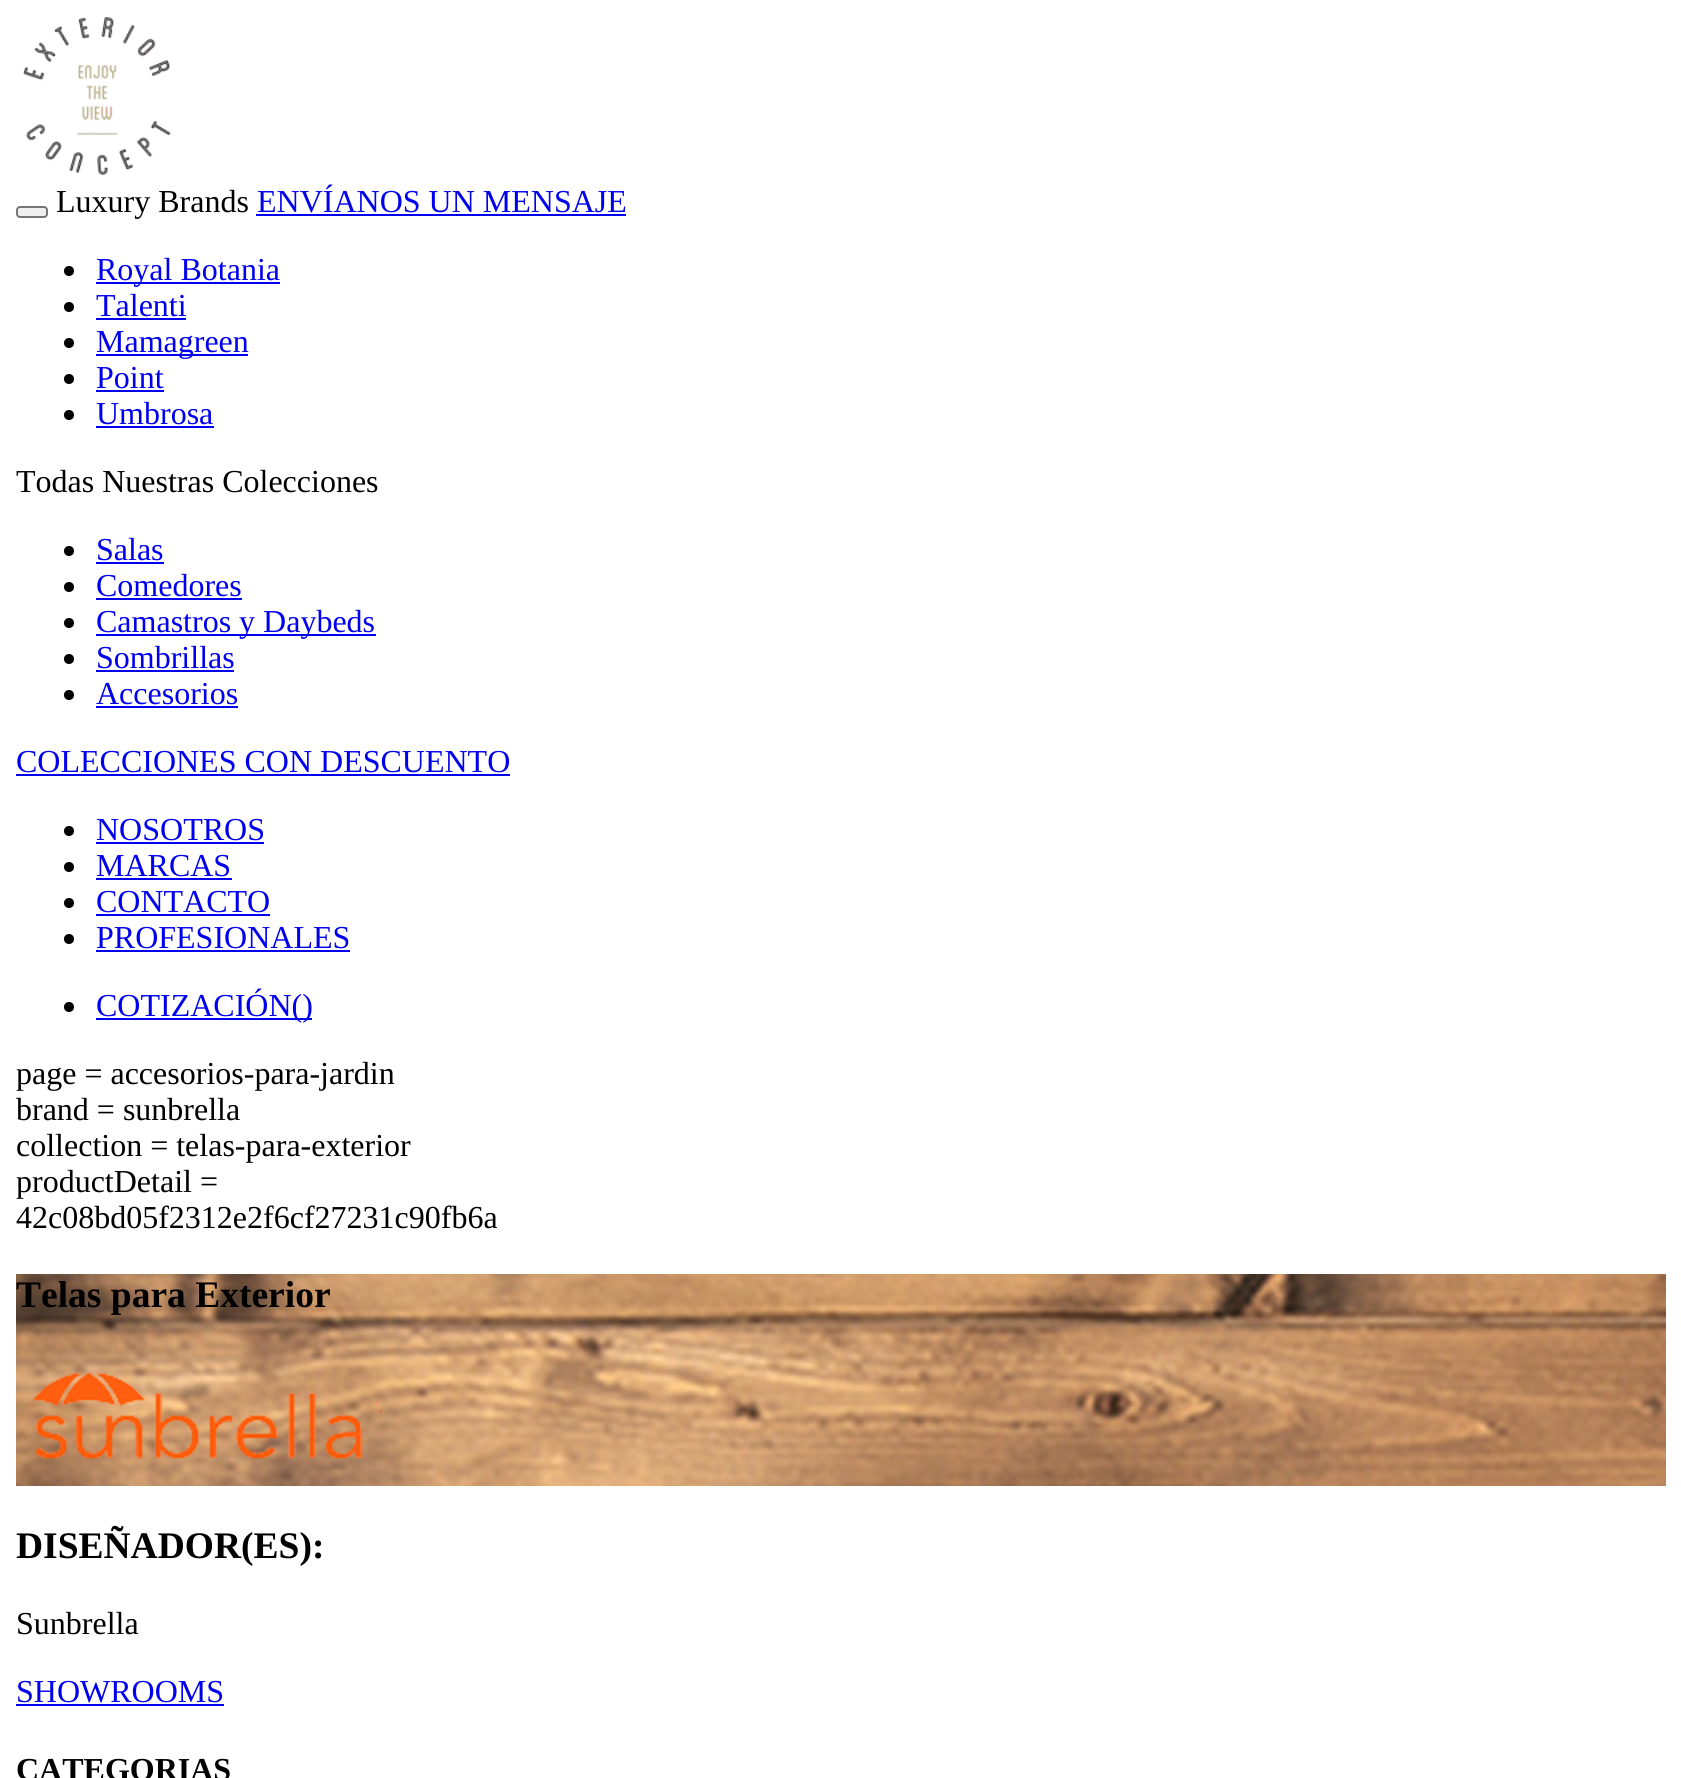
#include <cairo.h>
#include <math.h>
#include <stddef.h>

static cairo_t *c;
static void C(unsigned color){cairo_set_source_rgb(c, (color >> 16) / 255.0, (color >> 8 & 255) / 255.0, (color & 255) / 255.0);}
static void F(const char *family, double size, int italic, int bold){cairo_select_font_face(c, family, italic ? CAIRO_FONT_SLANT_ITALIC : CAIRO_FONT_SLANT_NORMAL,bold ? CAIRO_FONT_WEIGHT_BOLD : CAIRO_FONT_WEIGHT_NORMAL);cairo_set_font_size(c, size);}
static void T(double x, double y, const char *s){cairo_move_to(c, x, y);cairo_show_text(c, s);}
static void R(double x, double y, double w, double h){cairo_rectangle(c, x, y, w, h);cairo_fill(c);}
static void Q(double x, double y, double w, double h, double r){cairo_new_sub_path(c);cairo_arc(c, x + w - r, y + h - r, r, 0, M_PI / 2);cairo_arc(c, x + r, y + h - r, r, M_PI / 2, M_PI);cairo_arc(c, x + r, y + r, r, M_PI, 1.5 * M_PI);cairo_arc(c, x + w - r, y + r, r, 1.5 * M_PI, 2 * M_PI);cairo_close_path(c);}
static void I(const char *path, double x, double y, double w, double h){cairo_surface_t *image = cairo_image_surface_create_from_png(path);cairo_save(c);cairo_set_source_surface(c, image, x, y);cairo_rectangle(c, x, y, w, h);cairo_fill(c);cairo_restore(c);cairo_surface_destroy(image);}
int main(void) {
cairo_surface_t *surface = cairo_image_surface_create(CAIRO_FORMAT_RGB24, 1681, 1778);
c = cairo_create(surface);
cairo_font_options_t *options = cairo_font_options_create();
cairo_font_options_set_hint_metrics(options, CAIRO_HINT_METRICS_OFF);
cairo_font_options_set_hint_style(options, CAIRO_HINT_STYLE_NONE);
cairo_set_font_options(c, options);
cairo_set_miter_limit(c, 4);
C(0xffffff);
cairo_paint(c);
I("1.png",23,17,148,158);
C(0xefefef);
Q(17,207,30,10,3);
cairo_fill_preserve(c);
C(0x767676);
cairo_stroke(c);
F("Liberation Serif",32,0,0);
C(0x000000);
T(56,212,"Luxury Brands");
C(0x0000ee);
T(257,212,"ENVÍANOS UN MENSAJE");
R(256,214,370,2);
C(0x000000);
cairo_new_path(c);
cairo_arc(c,69,271,5,0,2 * M_PI);
cairo_fill(c);
C(0x0000ee);
R(96,282,184,2);
T(96,280,"Royal Botania");
C(0x000000);
cairo_new_path(c);
cairo_arc(c,69,307,5,0,2 * M_PI);
cairo_fill(c);
C(0x0000ee);
T(96,316,"Talenti");
R(96,318,90,2);
C(0x000000);
cairo_new_path(c);
cairo_arc(c,69,343,5,0,2 * M_PI);
cairo_fill(c);
C(0x0000ee);
R(96,354,152,2);
T(96,352,"Mamagreen");
C(0x000000);
cairo_new_path(c);
cairo_arc(c,69,379,5,0,2 * M_PI);
cairo_fill(c);
C(0x0000ee);
T(96,388,"Point");
R(96,390,68,2);
C(0x000000);
cairo_new_path(c);
cairo_arc(c,69,415,5,0,2 * M_PI);
cairo_fill(c);
C(0x0000ee);
T(96,424,"Umbrosa");
R(96,426,118,2);
C(0x000000);
T(16,492,"Todas Nuestras Colecciones");
cairo_new_path(c);
cairo_arc(c,69,551,5,0,2 * M_PI);
cairo_fill(c);
C(0x0000ee);
T(96,560,"Salas");
R(96,562,68,2);
C(0x000000);
cairo_new_path(c);
cairo_arc(c,69,587,5,0,2 * M_PI);
cairo_fill(c);
C(0x0000ee);
T(96,596,"Comedores");
R(96,598,146,2);
C(0x000000);
cairo_new_path(c);
cairo_arc(c,69,623,5,0,2 * M_PI);
cairo_fill(c);
C(0x0000ee);
R(96,634,280,2);
T(96,632,"Camastros y Daybeds");
C(0x000000);
cairo_new_path(c);
cairo_arc(c,69,659,5,0,2 * M_PI);
cairo_fill(c);
C(0x0000ee);
T(96,668,"Sombrillas");
R(96,670,138,2);
C(0x000000);
cairo_new_path(c);
cairo_arc(c,69,695,5,0,2 * M_PI);
cairo_fill(c);
C(0x0000ee);
T(96,704,"Accesorios");
R(96,706,142,2);
T(16,772,"COLECCIONES CON DESCUENTO");
R(16,774,494,2);
C(0x000000);
cairo_new_path(c);
cairo_arc(c,69,831,5,0,2 * M_PI);
cairo_fill(c);
C(0x0000ee);
T(96,840,"NOSOTROS");
R(96,842,168,2);
C(0x000000);
cairo_new_path(c);
cairo_arc(c,69,867,5,0,2 * M_PI);
cairo_fill(c);
C(0x0000ee);
T(96,876,"MARCAS");
R(96,878,136,2);
C(0x000000);
cairo_new_path(c);
cairo_arc(c,69,903,5,0,2 * M_PI);
cairo_fill(c);
C(0x0000ee);
T(96,912,"CONTACTO");
R(96,914,174,2);
C(0x000000);
cairo_new_path(c);
cairo_arc(c,69,939,5,0,2 * M_PI);
cairo_fill(c);
C(0x0000ee);
T(96,948,"PROFESIONALES");
R(96,950,254,2);
C(0x000000);
cairo_new_path(c);
cairo_arc(c,69,1007,5,0,2 * M_PI);
cairo_fill(c);
C(0x0000ee);
R(96,1018,216,2);
T(96,1016,"COTIZACIÓN()");
C(0x000000);
T(16,1084,"page = accesorios-para-jardin");
T(16,1120,"brand = sunbrella");
T(16,1156,"collection = telas-para-exterior");
T(16,1192,"productDetail =");
T(16,1228,"42c08bd05f2312e2f6cf27231c90fb6a");
I("2.png",16,1274,1650,212);
F("Liberation Serif",37.5,0,1);
T(16,1307,"Telas para Exterior");
I("3.png",33,1371,349,88);
T(16,1558,"DISEÑADOR(ES):");
F("Liberation Serif",32,0,0);
T(16,1634,"Sunbrella");
C(0x0000ee);
T(16,1702,"SHOWROOMS");
R(16,1704,208,2);
F("Liberation Serif",32,0,1);
C(0x000000);
T(16,1780,"CATEGORIAS");
cairo_surface_write_to_png(surface, "o.png");
cairo_font_options_destroy(options);
cairo_destroy(c);
cairo_surface_destroy(surface);
return 0;
}
